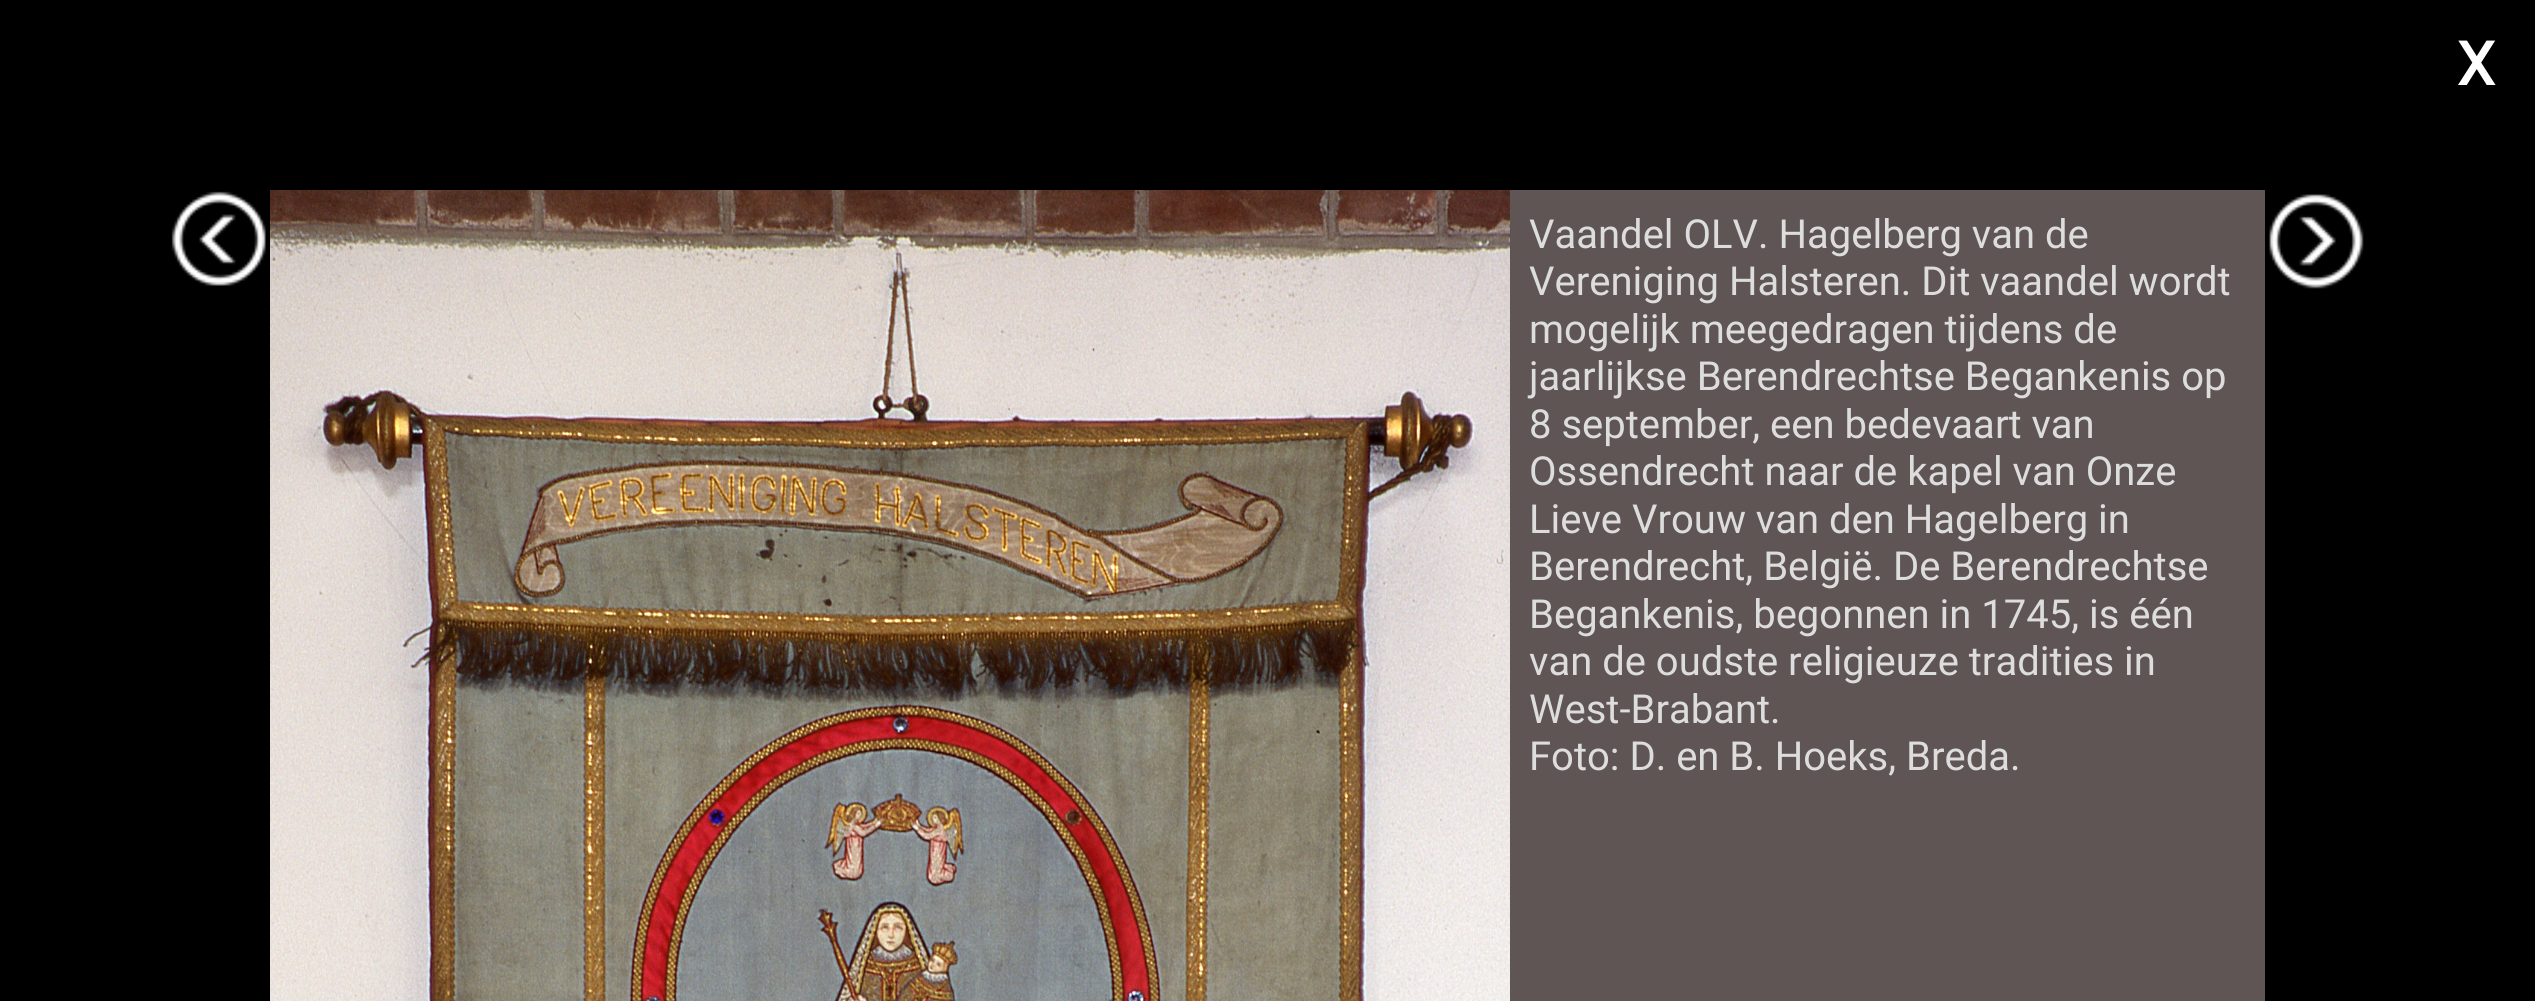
#include <cairo.h>
#include <math.h>
#include <stddef.h>

static cairo_t *c;
static void C(unsigned color){cairo_set_source_rgb(c, (color >> 16) / 255.0, (color >> 8 & 255) / 255.0, (color & 255) / 255.0);}
static void F(const char *family, double size, int italic, int bold){cairo_select_font_face(c, family, italic ? CAIRO_FONT_SLANT_ITALIC : CAIRO_FONT_SLANT_NORMAL,bold ? CAIRO_FONT_WEIGHT_BOLD : CAIRO_FONT_WEIGHT_NORMAL);cairo_set_font_size(c, size);}
static void T(double x, double y, const char *s){cairo_move_to(c, x, y);cairo_show_text(c, s);}
static void R(double x, double y, double w, double h){cairo_rectangle(c, x, y, w, h);cairo_fill(c);}
static void I(const char *path, double x, double y, double w, double h){cairo_surface_t *image = cairo_image_surface_create_from_png(path);cairo_save(c);cairo_set_source_surface(c, image, x, y);cairo_rectangle(c, x, y, w, h);cairo_fill(c);cairo_restore(c);cairo_surface_destroy(image);}
int main(void) {
cairo_surface_t *surface = cairo_image_surface_create(CAIRO_FORMAT_RGB24, 2535, 1001);
c = cairo_create(surface);
cairo_font_options_t *options = cairo_font_options_create();
cairo_font_options_set_hint_metrics(options, CAIRO_HINT_METRICS_OFF);
cairo_font_options_set_hint_style(options, CAIRO_HINT_STYLE_NONE);
cairo_set_font_options(c, options);
cairo_set_miter_limit(c, 4);
C(0x000000);
cairo_paint(c);
F("Roboto",60,0,1);
C(0xffffff);
T(2457,85,"X");
I("1.png",171,191,95,95);
I("2.png",270,190,1240,811);
C(0x5f5555);
R(1510,190,755,811);
F("Roboto",40,0,0);
C(0xdddddd);
T(1529,248,"Vaandel OLV. Hagelberg van de");
T(1529,295,"Vereniging Halsteren. Dit vaandel wordt");
T(1529,343,"mogelijk meegedragen tijdens de");
T(1529,390,"jaarlijkse Berendrechtse Begankenis op");
T(1529,438,"8 september, een bedevaart van");
T(1529,485,"Ossendrecht naar de kapel van Onze");
T(1529,533,"Lieve Vrouw van den Hagelberg in");
T(1529,580,"Berendrecht, België. De Berendrechtse");
T(1529,628,"Begankenis, begonnen in 1745, is één");
T(1529,675,"van de oudste religieuze tradities in");
T(1529,723,"West-Brabant.");
T(1529,770,"Foto: D. en B. Hoeks, Breda.");
I("3.png",2269,194,95,95);
cairo_surface_write_to_png(surface, "o.png");
cairo_font_options_destroy(options);
cairo_destroy(c);
cairo_surface_destroy(surface);
return 0;
}
